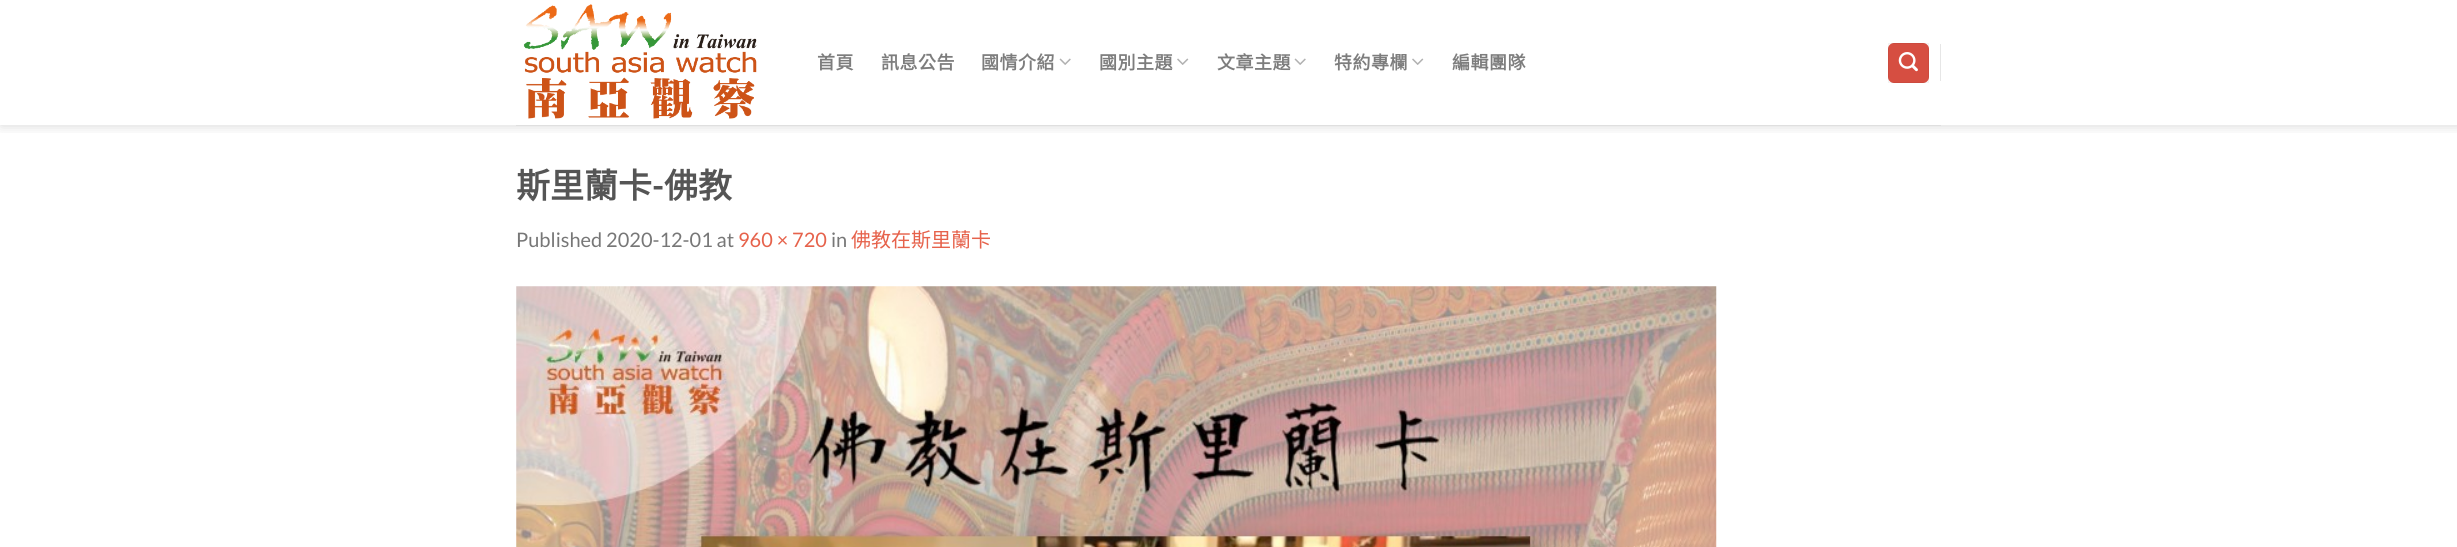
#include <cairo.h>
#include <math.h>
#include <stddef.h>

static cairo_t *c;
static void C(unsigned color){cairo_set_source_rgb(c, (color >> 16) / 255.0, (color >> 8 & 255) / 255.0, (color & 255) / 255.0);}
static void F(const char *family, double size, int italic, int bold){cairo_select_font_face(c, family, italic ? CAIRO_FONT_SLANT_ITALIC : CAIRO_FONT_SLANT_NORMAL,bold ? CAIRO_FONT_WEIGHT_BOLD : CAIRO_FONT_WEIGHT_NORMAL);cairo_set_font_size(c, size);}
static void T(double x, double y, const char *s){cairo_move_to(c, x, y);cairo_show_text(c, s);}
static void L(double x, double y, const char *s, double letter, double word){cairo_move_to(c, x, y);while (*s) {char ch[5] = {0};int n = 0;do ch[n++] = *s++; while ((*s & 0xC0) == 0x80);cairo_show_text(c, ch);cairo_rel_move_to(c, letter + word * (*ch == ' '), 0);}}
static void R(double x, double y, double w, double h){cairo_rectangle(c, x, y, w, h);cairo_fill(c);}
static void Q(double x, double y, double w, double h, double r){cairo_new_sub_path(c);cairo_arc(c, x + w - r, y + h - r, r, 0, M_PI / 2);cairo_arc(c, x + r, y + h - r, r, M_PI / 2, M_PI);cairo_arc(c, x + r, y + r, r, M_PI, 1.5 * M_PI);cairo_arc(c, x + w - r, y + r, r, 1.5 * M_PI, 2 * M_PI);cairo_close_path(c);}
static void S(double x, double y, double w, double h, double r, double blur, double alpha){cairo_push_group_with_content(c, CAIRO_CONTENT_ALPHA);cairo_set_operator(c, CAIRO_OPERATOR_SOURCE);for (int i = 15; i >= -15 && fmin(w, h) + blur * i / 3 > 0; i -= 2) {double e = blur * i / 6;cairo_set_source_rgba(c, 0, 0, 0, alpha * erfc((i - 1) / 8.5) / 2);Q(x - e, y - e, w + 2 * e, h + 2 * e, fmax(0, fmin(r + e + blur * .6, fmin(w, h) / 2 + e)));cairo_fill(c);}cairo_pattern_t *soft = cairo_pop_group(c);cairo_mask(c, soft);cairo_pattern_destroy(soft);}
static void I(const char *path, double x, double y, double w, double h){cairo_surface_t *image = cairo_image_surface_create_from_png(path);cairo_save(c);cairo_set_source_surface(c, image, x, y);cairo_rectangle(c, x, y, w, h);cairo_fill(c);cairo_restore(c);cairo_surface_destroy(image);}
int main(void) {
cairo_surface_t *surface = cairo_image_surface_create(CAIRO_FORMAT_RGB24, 2457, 547);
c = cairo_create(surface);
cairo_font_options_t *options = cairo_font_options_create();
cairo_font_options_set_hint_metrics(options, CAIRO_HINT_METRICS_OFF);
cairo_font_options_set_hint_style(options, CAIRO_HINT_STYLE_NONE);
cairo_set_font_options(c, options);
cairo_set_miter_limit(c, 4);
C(0xffffff);
cairo_paint(c);
cairo_save(c);
cairo_rectangle(c,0,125,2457,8);
cairo_clip(c);
C(0x000000);
S(1,1,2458,125,0,6,.15);
cairo_restore(c);
I("1.png",523,4,234,115);
F("Noto Sans CJK TC",18,0,1);
C(0x7d7d7d);
L(817,69,"首頁",.5,0);
L(881,69,"訊息公告",.5,0);
L(981,69,"國情介紹",.5,0);
I("2.png",1059,58,12,7);
L(1099,69,"國別主題",.5,0);
I("3.png",1177,58,12,7);
L(1217,69,"文章主題",.5,0);
I("2.png",1294,58,12,7);
L(1334,69,"特約專欄",.5,0);
I("3.png",1412,58,12,7);
L(1452,69,"編輯團隊",.5,0);
C(0xd64e41);
Q(1888,43,41,40,6);
cairo_fill(c);
cairo_rectangle(c,1888.5,43.5,40,39);
cairo_set_source_rgba(c,0,0,0,0.05);
cairo_set_line_width(c,1);
cairo_stroke(c);
I("4.png",1898,52,20,20);
C(0xe6e6e6);
R(1940,44,1,37);
C(0xdfdfdf);
R(516,125,1425,1);
F("Noto Sans CJK TC",34,0,1);
C(0x555555);
T(516,198,"斯里蘭卡");
F("Lato",34,0,1);
T(652,198,"-");
F("Noto Sans CJK TC",34,0,1);
T(664,198,"佛教");
F("Lato",20,0,0);
C(0x777777);
T(516,247,"Published 2020-12-01 at");
C(0xe6624b);
T(738,247,"960 × 720");
C(0x777777);
T(831,247,"in");
F("Noto Sans CJK TC",20,0,0);
C(0xe6624b);
T(851,247,"佛教在斯里蘭卡");
I("5.png",516,286,1201,261);
cairo_surface_write_to_png(surface, "o.png");
cairo_font_options_destroy(options);
cairo_destroy(c);
cairo_surface_destroy(surface);
return 0;
}
